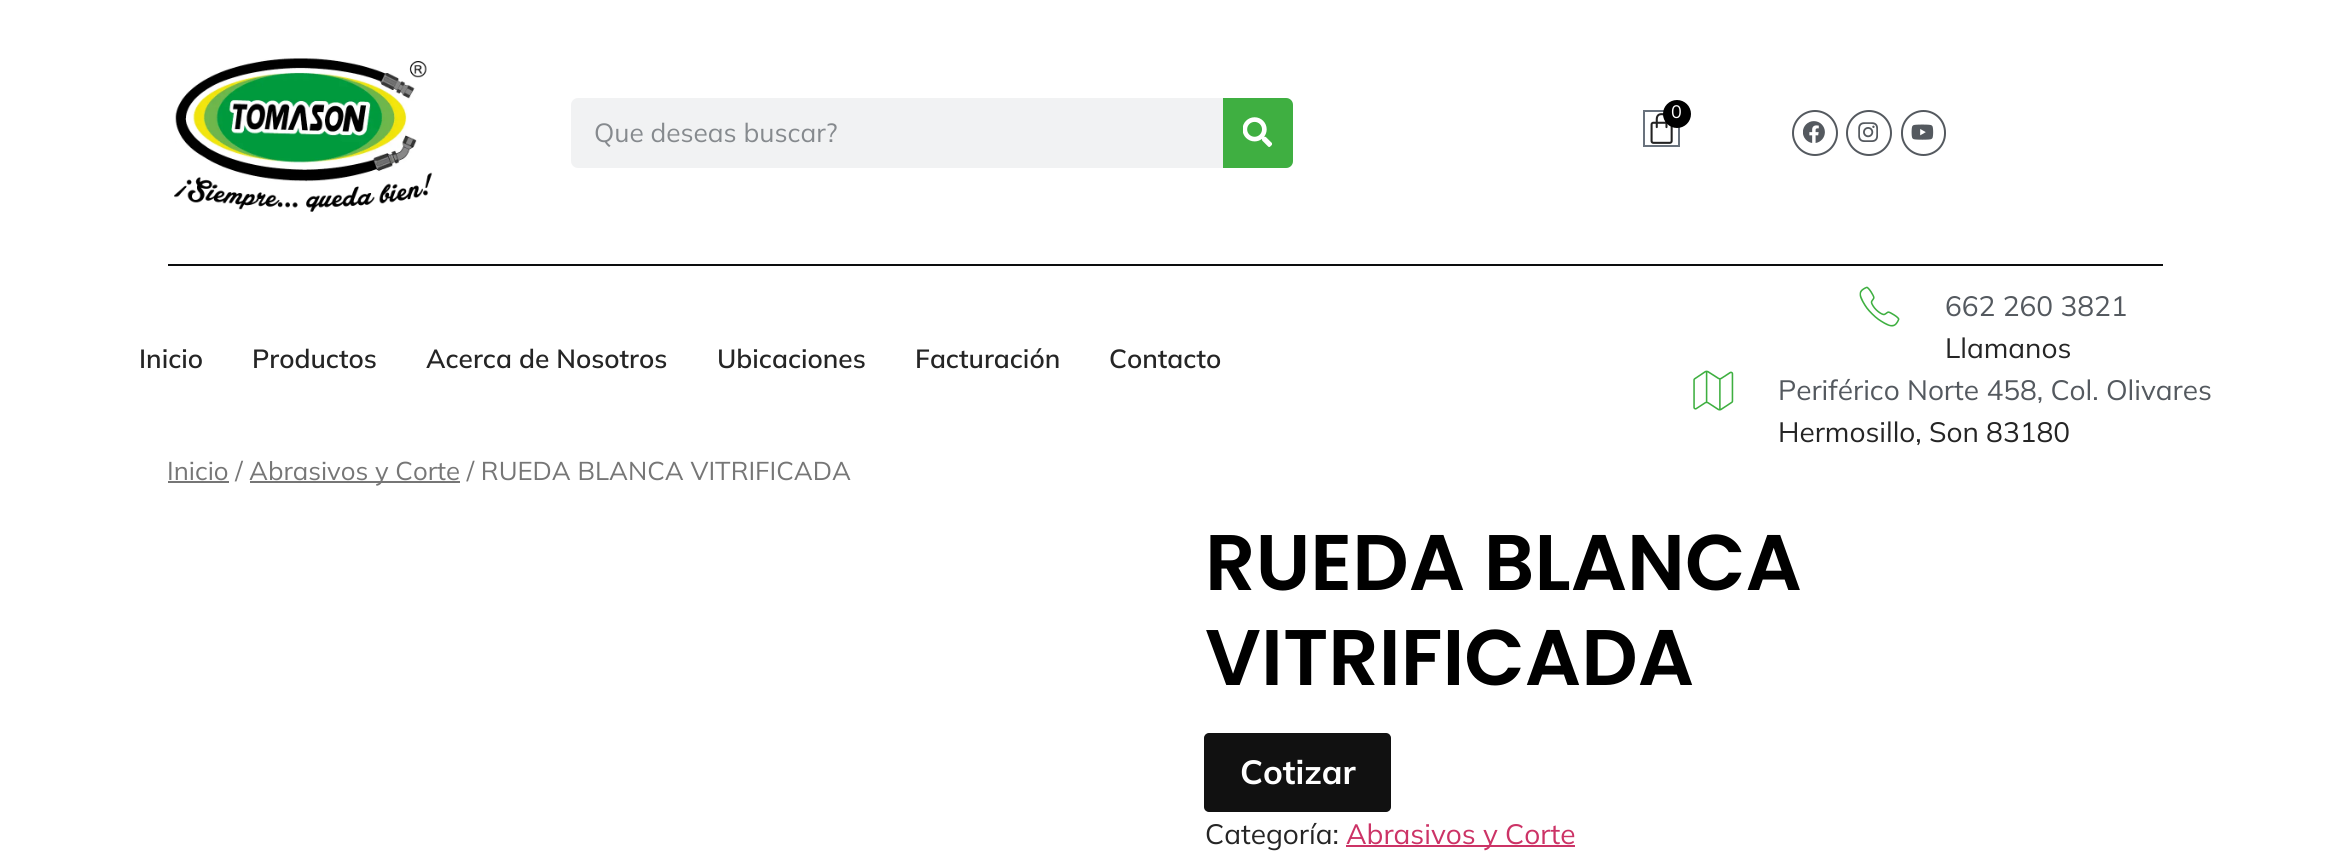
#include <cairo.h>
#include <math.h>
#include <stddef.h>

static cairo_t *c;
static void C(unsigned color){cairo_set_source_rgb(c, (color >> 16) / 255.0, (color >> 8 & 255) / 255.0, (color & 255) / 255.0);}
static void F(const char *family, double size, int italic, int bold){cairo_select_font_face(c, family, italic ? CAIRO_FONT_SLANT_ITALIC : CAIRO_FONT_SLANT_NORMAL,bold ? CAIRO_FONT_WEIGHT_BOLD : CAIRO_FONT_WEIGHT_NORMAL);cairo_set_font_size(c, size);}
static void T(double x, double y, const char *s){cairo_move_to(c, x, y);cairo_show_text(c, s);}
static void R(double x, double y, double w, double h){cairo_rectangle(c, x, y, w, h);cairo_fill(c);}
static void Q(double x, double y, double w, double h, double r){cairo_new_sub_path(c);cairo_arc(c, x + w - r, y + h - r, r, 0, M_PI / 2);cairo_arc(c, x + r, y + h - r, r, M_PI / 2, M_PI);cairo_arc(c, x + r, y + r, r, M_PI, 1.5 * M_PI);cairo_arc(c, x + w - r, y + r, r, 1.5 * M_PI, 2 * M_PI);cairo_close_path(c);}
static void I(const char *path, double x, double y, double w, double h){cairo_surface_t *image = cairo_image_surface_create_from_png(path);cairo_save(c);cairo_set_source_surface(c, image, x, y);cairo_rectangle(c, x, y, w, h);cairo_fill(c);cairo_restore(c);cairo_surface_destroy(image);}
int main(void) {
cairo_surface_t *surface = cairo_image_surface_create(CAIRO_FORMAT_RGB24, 2329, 852);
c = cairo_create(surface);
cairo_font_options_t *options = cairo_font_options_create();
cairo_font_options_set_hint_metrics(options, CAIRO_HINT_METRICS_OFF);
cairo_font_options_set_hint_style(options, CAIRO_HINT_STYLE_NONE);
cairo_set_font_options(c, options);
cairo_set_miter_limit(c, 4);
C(0xffffff);
cairo_paint(c);
I("1.png",174,58,259,154);
cairo_rectangle(c,1644,111,35,35);
C(0x69727d);
cairo_stroke(c);
I("2.png",1650,113,23,31);
C(0x000000);
cairo_arc(c,1677,114,14,0,2 * M_PI);
cairo_fill(c);
F("Mulish",18,0,0);
C(0xffffff);
T(1671,118,"0");
cairo_new_path(c);
cairo_arc(c,1815,133,22,0,2 * M_PI);
C(0x54595f);
cairo_stroke(c);
I("3.png",1803,121,22,22);
cairo_arc(c,1869,133,22,0,2 * M_PI);
cairo_stroke(c);
I("4.png",1858,122,20,20);
Q(1902,111,43,44,21.5);
cairo_stroke(c);
I("5.png",1911,124,23,16);
C(0xf1f2f3);
Q(571,98,722,70,7);
cairo_fill(c);
F("Mulish",26.25,0,0);
C(0x868a8e);
T(594,142,"Que deseas buscar?");
C(0x3faf41);
cairo_new_path(c);
cairo_move_to(c,1223,98);
cairo_line_to(c,1286,98);
cairo_curve_to(c,1290,98,1293,101,1293,105);
cairo_line_to(c,1293,161);
cairo_curve_to(c,1293,165,1290,168,1286,168);
cairo_line_to(c,1223,168);
cairo_close_path(c);
cairo_fill(c);
I("6.png",1243,117,29,30);
C(0x0c0d0e);
R(168,264,1995,2);
F("Mulish SemiBold",26.25,0,0);
C(0x252525);
T(139,368,"Inicio");
T(252,368,"Productos");
T(426,368,"Acerca de Nosotros");
T(717,368,"Ubicaciones");
T(915,368,"Facturación");
T(1109,368,"Contacto");
I("7.png",1859,286,41,41);
F("Mulish",28,0,0);
C(0x54595f);
T(1945,316,"662 260 3821");
C(0x252525);
T(1945,358,"Llamanos");
I("8.png",1693,370,41,41);
C(0x54595f);
T(1778,400,"Periférico Norte 458, Col. Olivares");
C(0x252525);
T(1778,442,"Hermosillo, Son 83180");
C(0x767676);
R(168,481,61,2);
F("Mulish",25.75,0,0);
T(167,480,"Inicio /");
R(250,481,210,2);
T(249,480,"Abrasivos y Corte / RUEDA BLANCA VITRIFICADA");
F("Poppins SemiBold",78.75,0,0);
C(0x000000);
T(1205,590,"RUEDA BLANCA");
T(1205,685,"VITRIFICADA");
C(0x111111);
Q(1205,734,185,77,4);
cairo_fill_preserve(c);
cairo_stroke(c);
F("Mulish",33.5,0,1);
C(0xffffff);
T(1240,784,"Cotizar");
F("Mulish",28,0,0);
C(0x252525);
T(1205,844,"Categoría:");
C(0xcc3366);
R(1346,845,229,2);
T(1346,844,"Abrasivos y Corte");
cairo_surface_write_to_png(surface, "o.png");
cairo_font_options_destroy(options);
cairo_destroy(c);
cairo_surface_destroy(surface);
return 0;
}
